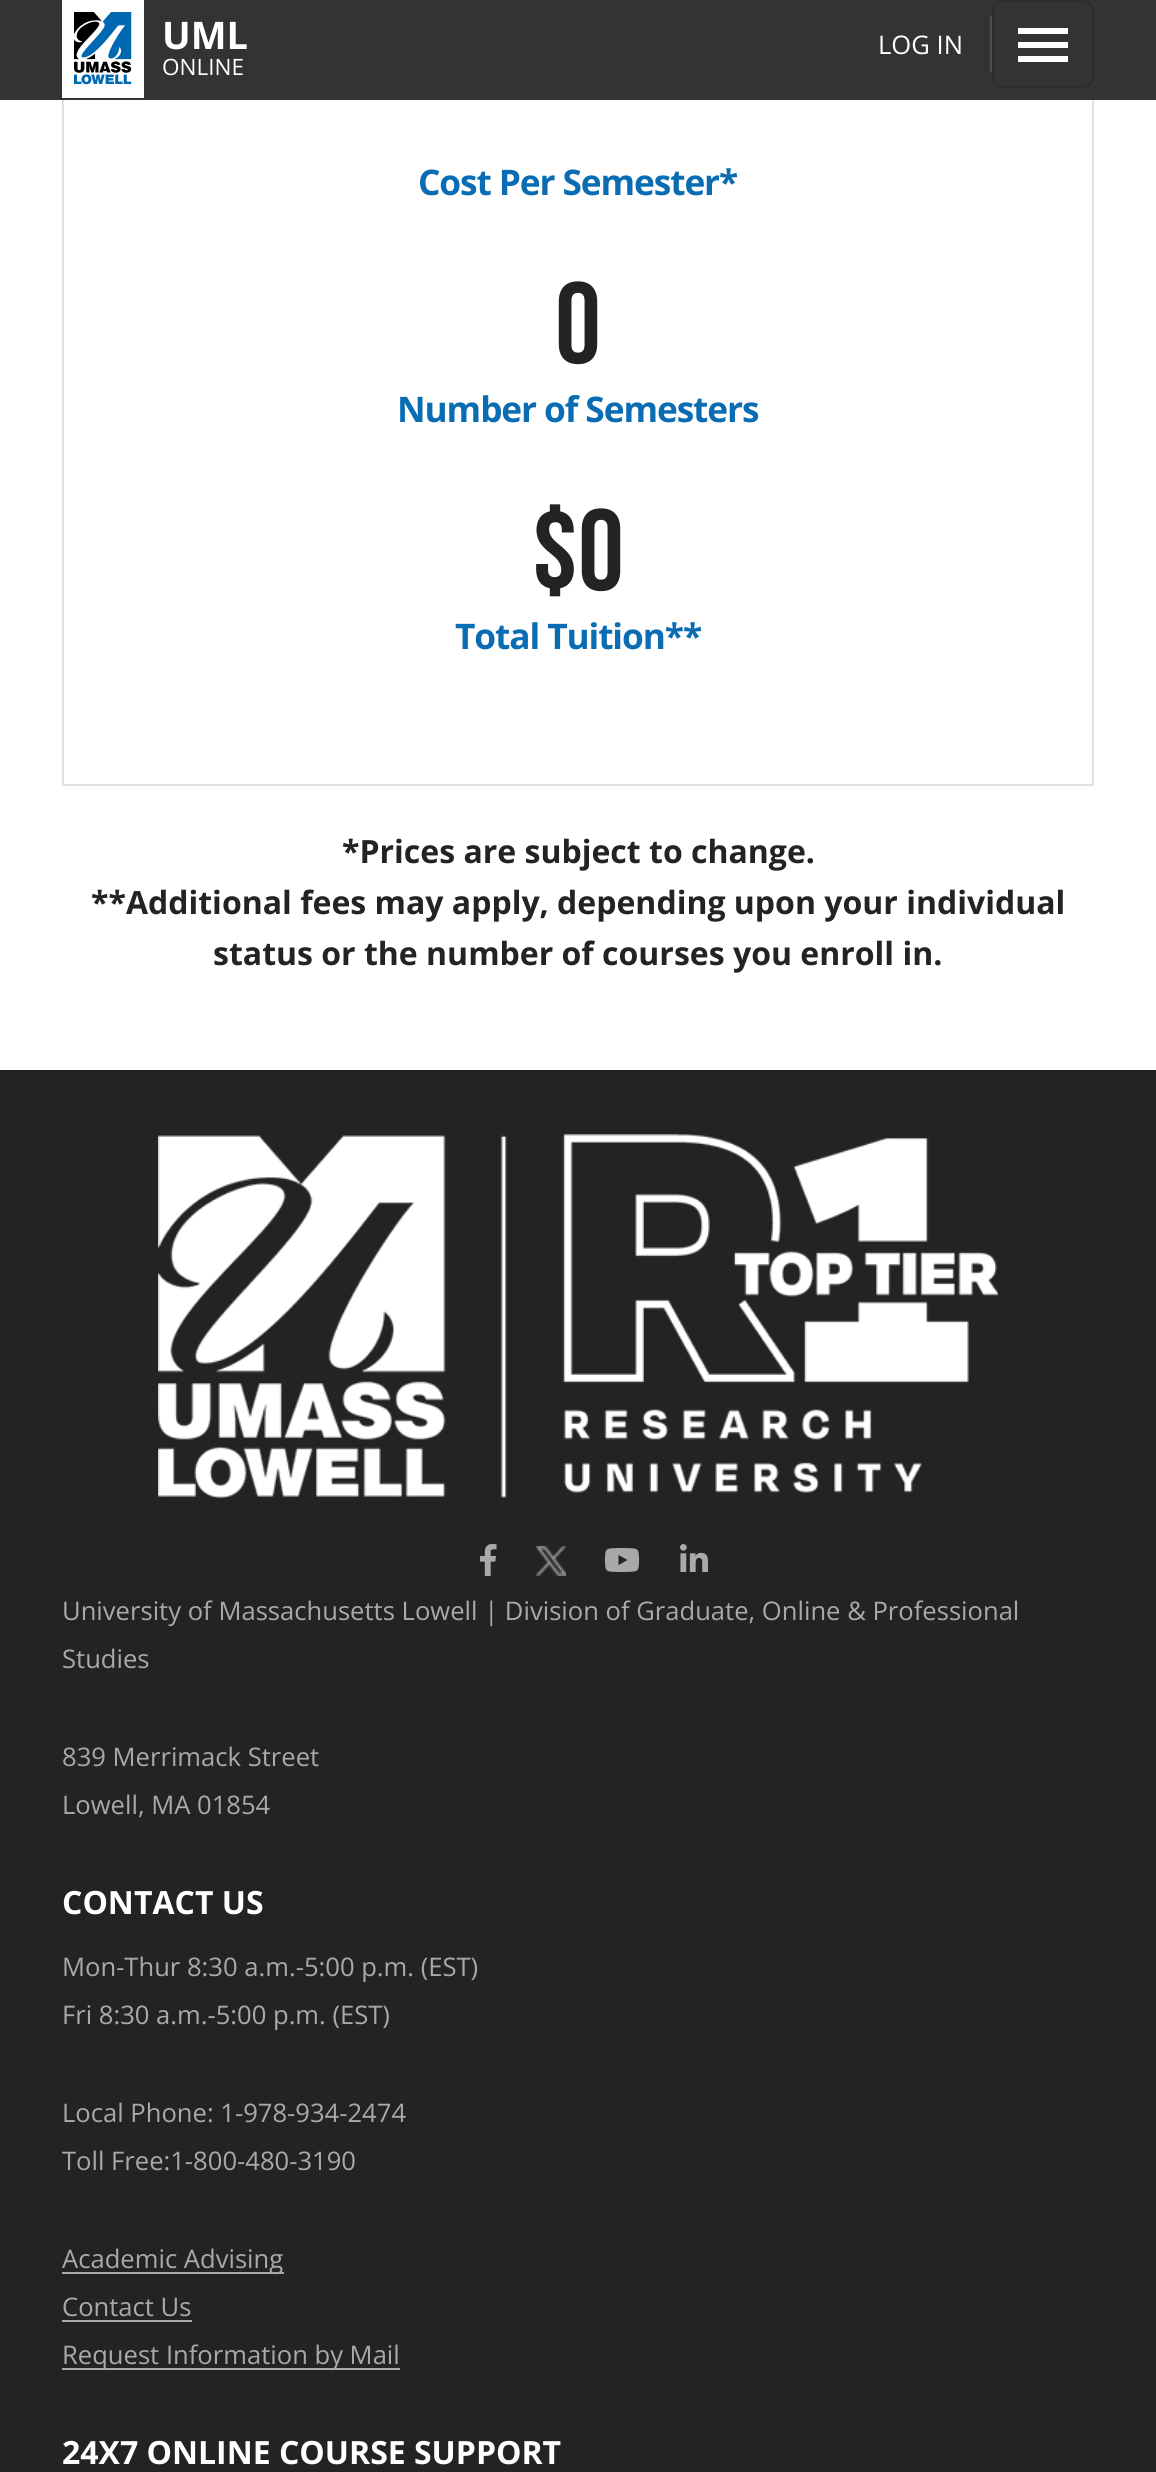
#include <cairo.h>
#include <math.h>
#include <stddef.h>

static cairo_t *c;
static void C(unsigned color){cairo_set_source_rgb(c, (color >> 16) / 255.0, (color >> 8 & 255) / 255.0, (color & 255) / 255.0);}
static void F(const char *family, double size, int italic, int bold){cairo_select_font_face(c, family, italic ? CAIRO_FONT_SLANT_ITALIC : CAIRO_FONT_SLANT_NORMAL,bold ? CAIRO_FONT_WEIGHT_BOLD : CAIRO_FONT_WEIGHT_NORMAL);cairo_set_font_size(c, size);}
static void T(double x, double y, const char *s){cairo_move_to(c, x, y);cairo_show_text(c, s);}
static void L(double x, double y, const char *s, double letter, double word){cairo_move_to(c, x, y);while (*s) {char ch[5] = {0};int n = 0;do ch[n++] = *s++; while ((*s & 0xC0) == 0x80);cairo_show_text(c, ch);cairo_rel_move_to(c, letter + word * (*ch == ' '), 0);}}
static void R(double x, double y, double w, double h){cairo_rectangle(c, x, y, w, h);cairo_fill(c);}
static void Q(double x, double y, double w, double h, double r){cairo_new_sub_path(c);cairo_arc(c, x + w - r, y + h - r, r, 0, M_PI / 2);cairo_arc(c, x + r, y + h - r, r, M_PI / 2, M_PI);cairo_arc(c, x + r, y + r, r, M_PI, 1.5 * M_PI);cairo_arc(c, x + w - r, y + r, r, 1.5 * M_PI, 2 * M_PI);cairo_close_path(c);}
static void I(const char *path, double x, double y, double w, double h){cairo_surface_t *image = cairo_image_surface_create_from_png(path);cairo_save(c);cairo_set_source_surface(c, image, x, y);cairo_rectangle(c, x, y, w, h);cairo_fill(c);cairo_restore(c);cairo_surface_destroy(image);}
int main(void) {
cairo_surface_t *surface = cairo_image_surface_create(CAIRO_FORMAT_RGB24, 1156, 2472);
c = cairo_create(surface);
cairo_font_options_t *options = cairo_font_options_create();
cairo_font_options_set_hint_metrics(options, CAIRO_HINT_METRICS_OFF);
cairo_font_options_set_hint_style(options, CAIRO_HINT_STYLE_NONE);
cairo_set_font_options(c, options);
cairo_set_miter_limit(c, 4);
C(0xffffff);
cairo_paint(c);
cairo_rectangle(c,63,-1,1030,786);
C(0xdee2e6);
cairo_stroke(c);
C(0x333333);
R(0,0,1156,100);
C(0xffffff);
R(62,0,82,98);
I("1.png",74,12,58,73);
F("Open Sans",38,0,1);
T(162,49,"UML");
F("Open Sans",22.5,0,0);
T(162,75,"ONLINE");
C(0x4f4f4f);
R(990,16,2,56);
F("Open Sans",25.6,0,0);
C(0xffffff);
T(878,54,"LOG IN");
Q(993,1,100,86,11);
C(0x2b2b2b);
cairo_stroke(c);
C(0xffffff);
R(1018,28,50,6);
R(1018,42,50,6);
R(1018,56,50,6);
F("Open Sans",35.25,0,1);
C(0x0a6cb2);
L(418,195,"Cost Per Semester*",-1.1,0);
F("Bebas Neue",115,0,0);
C(0x232323);
T(555,363,"0");
F("Open Sans",35.25,0,1);
C(0x0a6cb2);
L(397,422,"Number of Semesters",-1.1,0);
F("Bebas Neue",115,0,0);
C(0x232323);
T(532,590,"$0");
F("Open Sans",35.25,0,1);
C(0x0a6cb2);
L(455,649,"Total Tuition**",-1.1,0);
F("Open Sans",32,0,1);
C(0x232323);
T(342,863,"*Prices are subject to change.");
T(91,914,"**Additional fees may apply, depending upon your individual");
T(213,965,"status or the number of courses you enroll in.");
R(0,1070,1156,1402);
I("2.png",158,1134,840,364);
I("3.png",480,1544,17,32);
I("4.png",536,1546,30,30);
I("5.png",604,1548,36,24);
I("6.png",680,1544,28,28);
F("Open Sans",25.6,0,0);
C(0xa9a9a9);
T(62,1620,"University of Massachusetts Lowell | Division of Graduate, Online & Professional");
T(62,1668,"Studies");
T(62,1766,"839 Merrimack Street");
T(62,1814,"Lowell, MA 01854");
F("Open Sans",32,0,1);
C(0xffffff);
T(62,1914,"CONTACT US");
F("Open Sans",25.6,0,0);
C(0xa9a9a9);
T(62,1976,"Mon-Thur 8:30 a.m.-5:00 p.m. (EST)");
T(62,2024,"Fri 8:30 a.m.-5:00 p.m. (EST)");
T(62,2122,"Local Phone: 1-978-934-2474");
T(62,2170,"Toll Free:1-800-480-3190");
R(62,2272,222,2);
T(62,2268,"Academic Advising");
T(62,2316,"Contact Us");
R(62,2320,130,2);
R(62,2368,338,2);
T(62,2364,"Request Information by Mail");
F("Open Sans",32,0,1);
C(0xffffff);
T(62,2464,"24X7 ONLINE COURSE SUPPORT");
cairo_surface_write_to_png(surface, "o.png");
cairo_font_options_destroy(options);
cairo_destroy(c);
cairo_surface_destroy(surface);
return 0;
}
